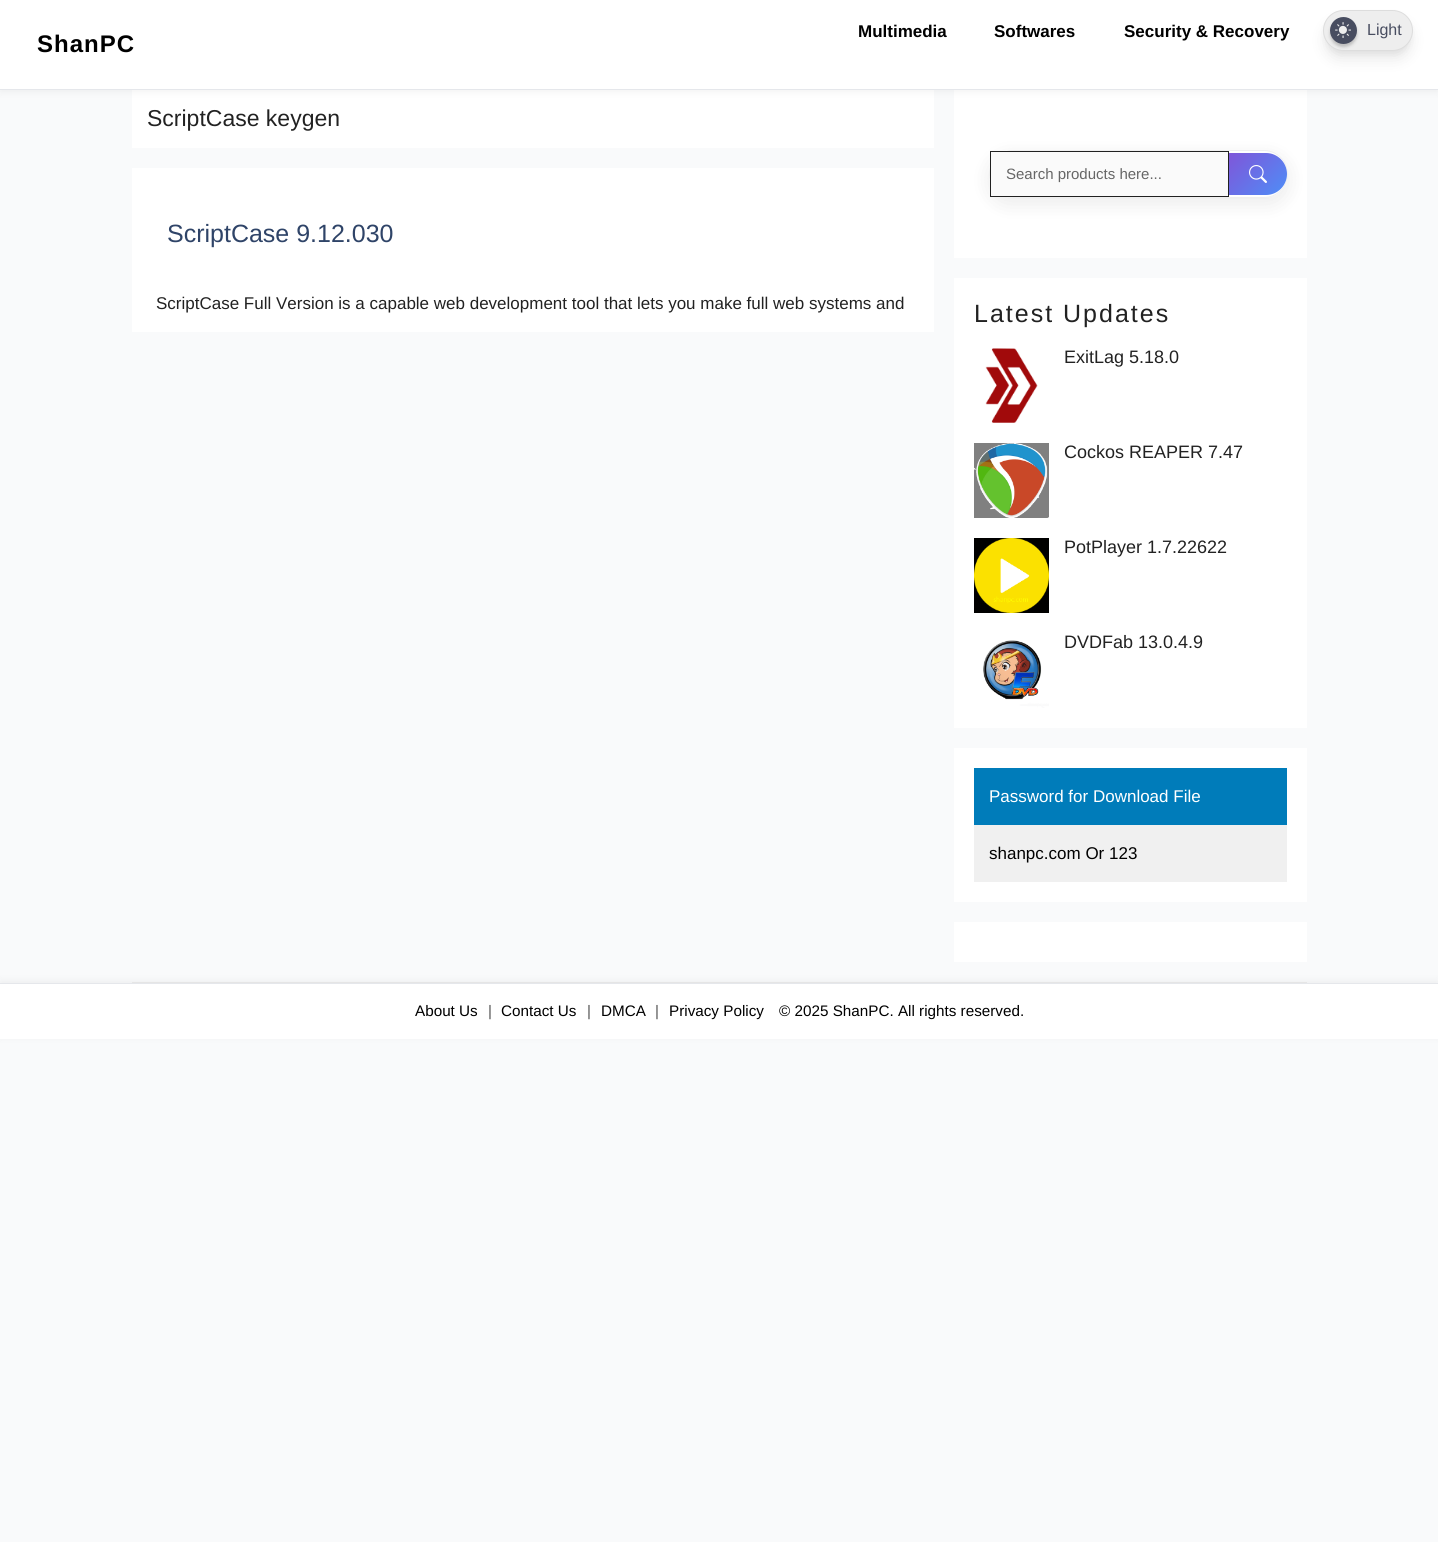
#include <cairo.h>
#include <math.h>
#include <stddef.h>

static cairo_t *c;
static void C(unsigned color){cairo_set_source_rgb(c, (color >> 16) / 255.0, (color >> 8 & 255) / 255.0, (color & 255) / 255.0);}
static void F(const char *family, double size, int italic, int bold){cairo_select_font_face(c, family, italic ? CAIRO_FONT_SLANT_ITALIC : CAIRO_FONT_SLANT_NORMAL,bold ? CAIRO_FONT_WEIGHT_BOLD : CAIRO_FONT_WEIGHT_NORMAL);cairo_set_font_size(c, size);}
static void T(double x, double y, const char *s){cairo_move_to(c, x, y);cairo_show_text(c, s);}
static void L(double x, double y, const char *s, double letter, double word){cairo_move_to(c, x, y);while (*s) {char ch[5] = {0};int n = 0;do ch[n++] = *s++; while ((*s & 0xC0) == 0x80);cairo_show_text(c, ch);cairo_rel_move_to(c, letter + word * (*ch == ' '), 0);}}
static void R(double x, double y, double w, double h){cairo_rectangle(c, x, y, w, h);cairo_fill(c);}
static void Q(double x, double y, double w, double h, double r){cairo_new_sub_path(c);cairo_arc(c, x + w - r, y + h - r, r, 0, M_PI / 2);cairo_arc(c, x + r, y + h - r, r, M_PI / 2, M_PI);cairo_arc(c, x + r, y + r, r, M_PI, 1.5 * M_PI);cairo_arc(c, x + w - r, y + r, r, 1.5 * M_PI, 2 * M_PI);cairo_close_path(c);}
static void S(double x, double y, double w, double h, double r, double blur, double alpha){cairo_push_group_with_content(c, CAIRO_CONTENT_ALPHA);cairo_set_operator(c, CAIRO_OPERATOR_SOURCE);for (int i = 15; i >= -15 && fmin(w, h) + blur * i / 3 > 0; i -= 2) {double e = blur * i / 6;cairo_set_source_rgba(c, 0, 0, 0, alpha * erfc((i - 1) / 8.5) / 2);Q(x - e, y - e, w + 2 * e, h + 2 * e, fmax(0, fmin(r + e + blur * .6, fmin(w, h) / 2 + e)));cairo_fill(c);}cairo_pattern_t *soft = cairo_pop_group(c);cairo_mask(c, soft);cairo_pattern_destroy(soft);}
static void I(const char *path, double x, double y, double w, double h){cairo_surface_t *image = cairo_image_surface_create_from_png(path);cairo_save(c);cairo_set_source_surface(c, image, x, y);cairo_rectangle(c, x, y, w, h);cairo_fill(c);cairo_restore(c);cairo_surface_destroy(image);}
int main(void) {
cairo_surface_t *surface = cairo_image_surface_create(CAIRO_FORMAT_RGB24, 1438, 1542);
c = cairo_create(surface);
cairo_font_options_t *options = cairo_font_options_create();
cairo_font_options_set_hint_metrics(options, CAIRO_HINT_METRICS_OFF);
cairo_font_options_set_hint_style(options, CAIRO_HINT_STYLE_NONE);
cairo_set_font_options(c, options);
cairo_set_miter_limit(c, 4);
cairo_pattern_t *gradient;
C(0xf9fafb);
cairo_paint(c);
C(0xffffff);
R(132,90,802,58);
R(954,90,353,168);
C(0x000000);
S(0,2,1438,90,0,4,.05);
C(0xffffff);
R(0,0,1438,89);
C(0xe5e7eb);
R(0,89,1438,1);
F("Liberation Sans",17,0,1);
C(0x000000);
T(858,37,"Multimedia");
T(994,37,"Softwares");
T(1124,37,"Security & Recovery");
C(0x000000);
S(1325,16,86,37,18.5,3,.05);
S(1326,23,84,35,17.5,7.5,.1);
C(0xeeeeee);
Q(1323.5,10.5,89,40,20);
cairo_fill_preserve(c);
C(0xdddddd);
cairo_set_line_width(c,1);
cairo_stroke(c);
C(0x000000);
S(1330,20,27,27,13.5,1.5,.2);
C(0x484d60);
cairo_arc(c,1343.5,30.5,13.5,0,2 * M_PI);
cairo_fill(c);
I("1.png",1335,22,16,16);
F("Liberation Sans",16,0,0);
T(1367,35,"Light");
F("Liberation Sans",24,0,1);
C(0x000000);
L(37,52,"ShanPC",1,0);
F("Liberation Sans",23,0,0);
C(0x222222);
T(147,126,"ScriptCase keygen");
C(0xffffff);
R(132,168,802,164);
F("Liberation Sans",25,0,0);
C(0x2f4468);
T(167,242,"ScriptCase 9.12.030");
F("Liberation Sans",17,0,0);
C(0x222222);
T(156,309,"ScriptCase Full Version is a capable web development tool that lets you make full web systems and");
cairo_save(c);
cairo_set_fill_rule(c,CAIRO_FILL_RULE_EVEN_ODD);
cairo_new_path(c);
cairo_move_to(c,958,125);
cairo_line_to(c,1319,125);
cairo_line_to(c,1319,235);
cairo_line_to(c,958,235);
cairo_close_path(c);
cairo_move_to(c,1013,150);
cairo_line_to(c,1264,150);
cairo_curve_to(c,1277.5,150,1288,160.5,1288,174);
cairo_curve_to(c,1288,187.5,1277.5,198,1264,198);
cairo_line_to(c,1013,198);
cairo_curve_to(c,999.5,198,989,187.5,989,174);
cairo_curve_to(c,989,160.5,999.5,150,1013,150);
cairo_close_path(c);
cairo_clip(c);
C(0x000000);
S(989,156,299,48,24,10,.08);
cairo_restore(c);
Q(989.5,150.5,298,47,23.5);
cairo_set_source_rgba(c,0.784,0.784,0.784,0.3);
cairo_stroke(c);
C(0xfafafa);
cairo_rectangle(c,990.5,151.5,238,45);
cairo_fill_preserve(c);
C(0x212121);
cairo_stroke(c);
F("Liberation Sans",15,0,0);
C(0x666666);
T(1006,179,"Search products here...");
gradient = cairo_pattern_create_linear(1233,149,1283,199);
cairo_pattern_add_color_stop_rgba(gradient,0,0.498,0.337,0.851,1);
cairo_pattern_add_color_stop_rgba(gradient,1,0.306,0.557,0.969,1);
cairo_set_source(c,gradient);
cairo_pattern_destroy(gradient);
cairo_new_path(c);
cairo_move_to(c,1229,153);
cairo_line_to(c,1266,153);
cairo_curve_to(c,1277.5,153,1287,162.5,1287,174);
cairo_curve_to(c,1287,185.5,1277.5,195,1266,195);
cairo_line_to(c,1229,195);
cairo_close_path(c);
cairo_fill(c);
I("2.png",1249,165,18,18);
C(0xffffff);
R(954,278,353,450);
F("Liberation Sans",25,0,0);
C(0x222222);
L(974,322,"Latest Updates",2,0);
I("3.png",985,348,53,75);
F("Liberation Sans",18,0,0);
T(1064,363,"ExitLag 5.18.0");
I("4.png",974,443,75,75);
T(1064,458,"Cockos REAPER 7.47");
I("5.png",974,538,75,75);
T(1064,553,"PotPlayer 1.7.22622");
I("6.png",983,640,66,68);
T(1064,648,"DVDFab 13.0.4.9");
C(0xffffff);
R(954,748,353,154);
C(0x007cba);
R(974,768,313,57);
F("Liberation Sans",17,0,0);
C(0xffffff);
T(989,802,"Password for Download File");
C(0xf0f0f0);
R(974,825,313,57);
C(0x000000);
T(989,859,"shanpc.com Or 123");
C(0xffffff);
R(954,922,353,40);
C(0x000000);
S(0,981,1438,56,0,4,.05);
C(0xe5e5e5);
R(132,982,1175,1);
C(0xffffff);
R(0,984,1438,55);
C(0xe5e7eb);
R(0,983,1438,1);
F("Liberation Sans",15.25,0,0);
C(0x000000);
T(415,1016,"About Us");
C(0x555555);
T(488,1016,"|");
C(0x000000);
T(501,1016,"Contact Us");
C(0x555555);
T(587,1016,"|");
C(0x000000);
T(601,1016,"DMCA");
C(0x555555);
T(655,1016,"|");
C(0x000000);
T(669,1016,"Privacy Policy");
T(779,1016,"© 2025 ShanPC. All rights reserved.");
cairo_surface_write_to_png(surface, "o.png");
cairo_font_options_destroy(options);
cairo_destroy(c);
cairo_surface_destroy(surface);
return 0;
}
